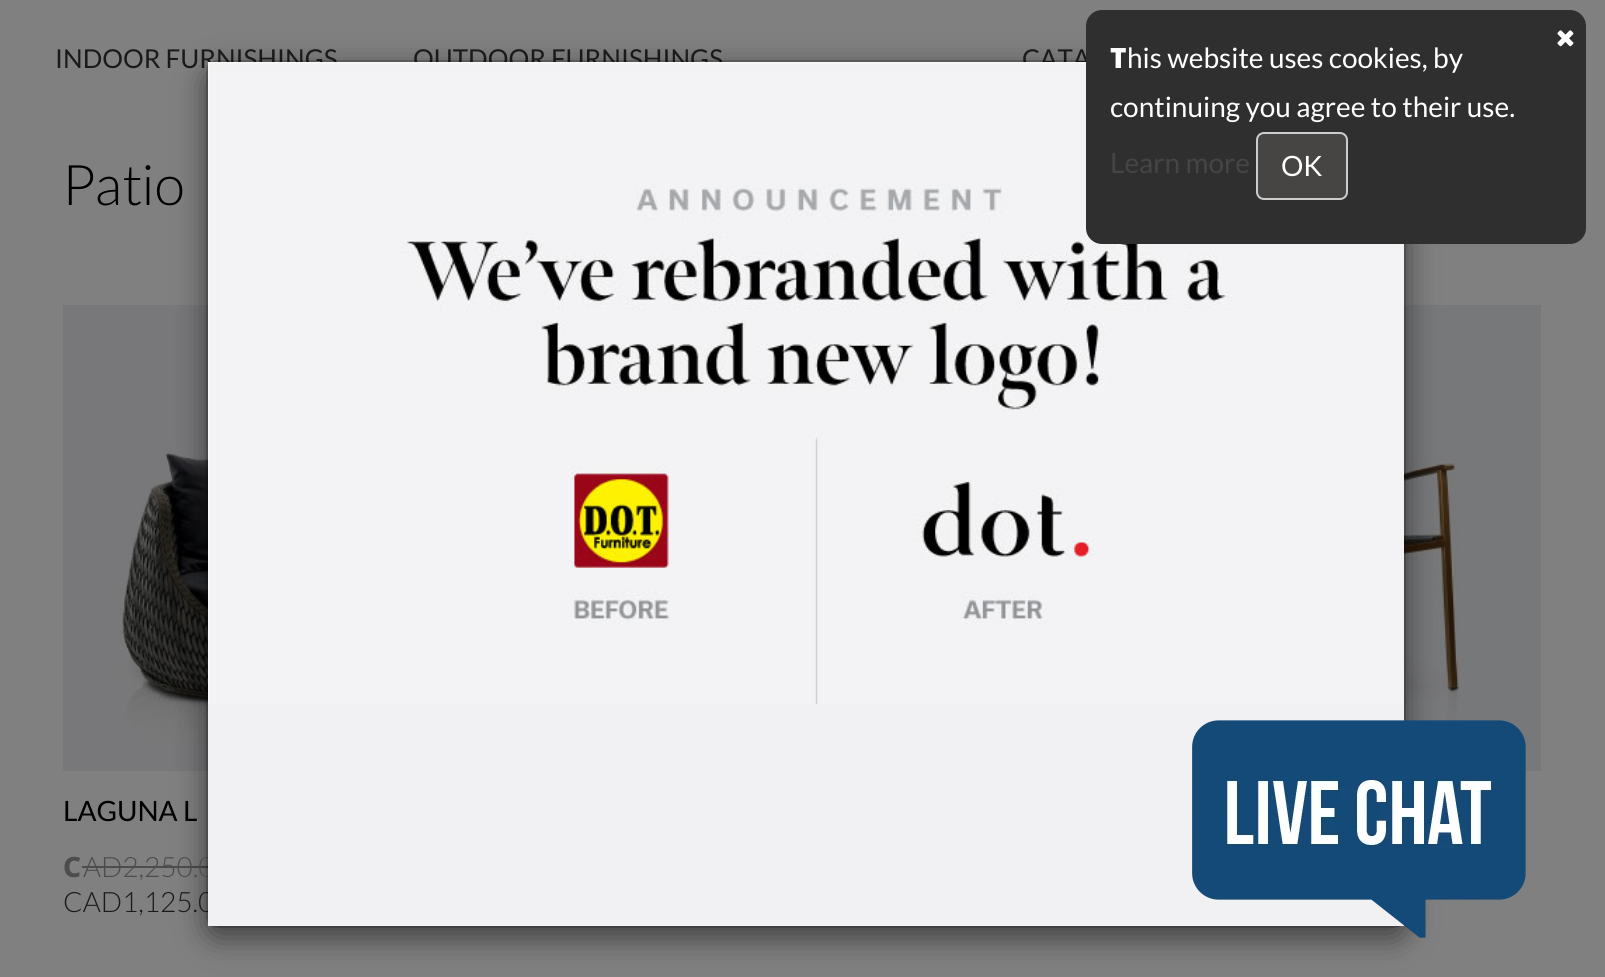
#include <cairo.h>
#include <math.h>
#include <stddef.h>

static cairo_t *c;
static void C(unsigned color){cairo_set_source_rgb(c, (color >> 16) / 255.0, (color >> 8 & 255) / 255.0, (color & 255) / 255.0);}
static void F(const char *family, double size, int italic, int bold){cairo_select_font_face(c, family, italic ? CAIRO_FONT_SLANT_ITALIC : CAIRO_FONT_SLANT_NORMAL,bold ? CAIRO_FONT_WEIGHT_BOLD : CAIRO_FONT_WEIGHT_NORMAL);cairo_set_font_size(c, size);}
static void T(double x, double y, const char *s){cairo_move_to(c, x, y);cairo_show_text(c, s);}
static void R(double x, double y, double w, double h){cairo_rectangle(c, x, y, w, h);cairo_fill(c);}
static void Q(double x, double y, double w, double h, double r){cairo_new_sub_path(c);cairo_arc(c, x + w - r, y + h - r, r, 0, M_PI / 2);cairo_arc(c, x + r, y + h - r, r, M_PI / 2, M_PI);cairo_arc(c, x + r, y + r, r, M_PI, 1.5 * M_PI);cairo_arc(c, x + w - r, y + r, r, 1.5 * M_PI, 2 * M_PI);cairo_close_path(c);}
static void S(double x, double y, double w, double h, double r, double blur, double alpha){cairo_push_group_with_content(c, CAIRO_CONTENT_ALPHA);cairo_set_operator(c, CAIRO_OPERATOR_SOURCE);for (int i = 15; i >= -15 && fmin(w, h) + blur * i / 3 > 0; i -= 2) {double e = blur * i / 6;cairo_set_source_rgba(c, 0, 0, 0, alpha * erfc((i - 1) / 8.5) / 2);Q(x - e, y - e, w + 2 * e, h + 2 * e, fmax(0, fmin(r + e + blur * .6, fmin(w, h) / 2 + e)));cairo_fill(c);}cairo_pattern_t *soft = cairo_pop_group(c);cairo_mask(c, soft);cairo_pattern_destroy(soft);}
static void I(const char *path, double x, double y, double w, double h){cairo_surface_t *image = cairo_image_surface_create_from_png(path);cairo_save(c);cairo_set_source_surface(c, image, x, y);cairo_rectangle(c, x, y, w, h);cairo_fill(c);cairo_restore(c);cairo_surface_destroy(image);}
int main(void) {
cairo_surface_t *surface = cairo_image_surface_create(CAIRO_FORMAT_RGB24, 1605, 977);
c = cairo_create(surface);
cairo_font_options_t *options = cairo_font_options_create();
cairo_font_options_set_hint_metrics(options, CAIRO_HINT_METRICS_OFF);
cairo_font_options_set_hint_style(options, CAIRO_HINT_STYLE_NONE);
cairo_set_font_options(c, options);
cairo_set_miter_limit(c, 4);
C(0x808080);
cairo_paint(c);
I("2.png",1404,305,137,466);
I("3.png",63,305,145,466);
C(0x4d4d4d);
R(82,866,126,2);
C(0x000000);
S(206,70,1200,868,12,15,.5);
F("Lato",26,0,0);
C(0x1a1a1a);
T(55,68,"INDOOR FURNISHINGS");
T(413,68,"OUTDOOR FURNISHINGS");
T(1022,68,"CATA");
F("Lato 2 Light",28,0,0);
C(0x4d4d4d);
T(83,877,"AD2,250.0");
C(0x1a1a1a);
T(63,912,"CAD1,125.0");
Q(207,61,1198,866,11);
cairo_set_source_rgba(c,0,0,0,0.2);
cairo_stroke(c);
C(0xf1f1f3);
R(208,704,1196,222);
I("1.png",208,62,1196,642);
F("Lato Light",56,0,0);
C(0x000000);
T(63,205,"Patio");
F("Lato",28,0,0);
T(63,821,"LAGUNA L");
F("Noto Sans ExtraBold",28,0,0);
C(0x4d4d4d);
T(63,877,"C");
C(0x2f2f2f);
Q(1086,10,500,234,16);
cairo_fill(c);
I("4.png",1557,30,17,17);
F("Noto Sans Black",28,0,0);
C(0xffffff);
T(1110,68,"T");
F("Lato",28,0,0);
T(1127,68,"his website uses cookies, by");
T(1110,117,"continuing you agree to their use.");
C(0x474444);
T(1110,173,"Learn more");
Q(1257,133,90,66,7);
cairo_fill_preserve(c);
C(0xcccccc);
cairo_stroke(c);
C(0xffffff);
T(1281,176,"OK");
I("5.png",1192,720,334,218);
cairo_surface_write_to_png(surface, "o.png");
cairo_font_options_destroy(options);
cairo_destroy(c);
cairo_surface_destroy(surface);
return 0;
}
